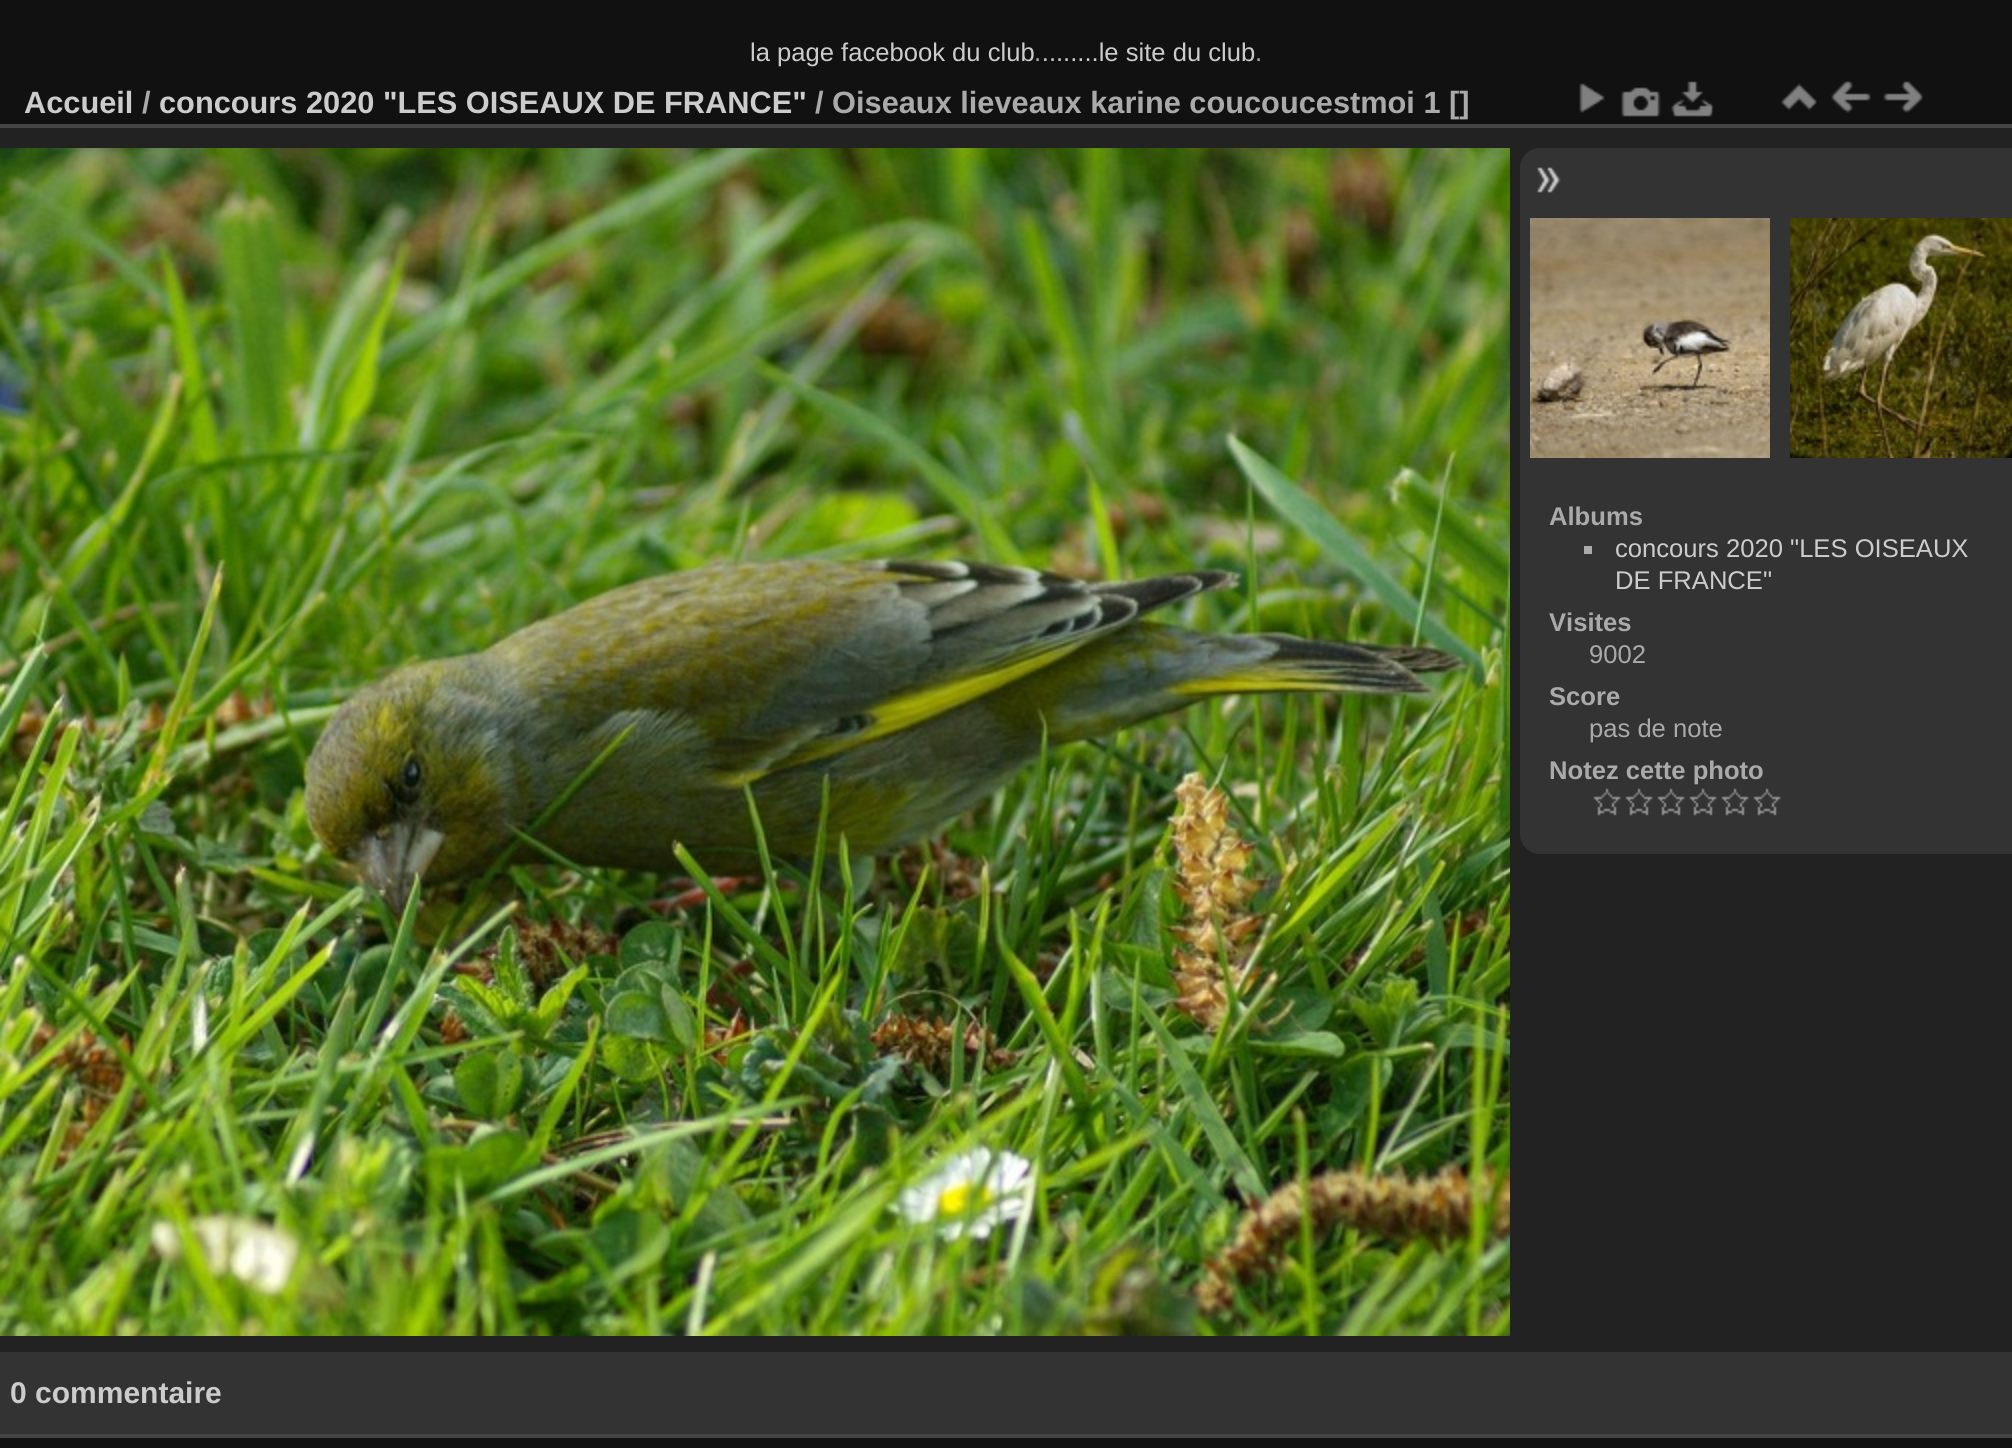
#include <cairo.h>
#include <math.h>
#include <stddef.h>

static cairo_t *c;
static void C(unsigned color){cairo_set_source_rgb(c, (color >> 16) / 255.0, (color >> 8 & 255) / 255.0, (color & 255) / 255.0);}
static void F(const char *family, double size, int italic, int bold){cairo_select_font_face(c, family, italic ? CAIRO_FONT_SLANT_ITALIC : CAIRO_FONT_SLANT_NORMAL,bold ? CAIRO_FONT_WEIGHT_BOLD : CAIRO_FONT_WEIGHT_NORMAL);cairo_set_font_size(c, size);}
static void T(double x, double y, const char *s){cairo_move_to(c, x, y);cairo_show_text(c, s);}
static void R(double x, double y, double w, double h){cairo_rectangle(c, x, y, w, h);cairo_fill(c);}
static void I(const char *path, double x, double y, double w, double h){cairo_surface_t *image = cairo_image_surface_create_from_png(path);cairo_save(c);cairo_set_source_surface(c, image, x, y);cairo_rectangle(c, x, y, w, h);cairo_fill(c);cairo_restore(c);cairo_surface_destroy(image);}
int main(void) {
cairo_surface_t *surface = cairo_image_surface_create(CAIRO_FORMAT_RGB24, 2012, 1448);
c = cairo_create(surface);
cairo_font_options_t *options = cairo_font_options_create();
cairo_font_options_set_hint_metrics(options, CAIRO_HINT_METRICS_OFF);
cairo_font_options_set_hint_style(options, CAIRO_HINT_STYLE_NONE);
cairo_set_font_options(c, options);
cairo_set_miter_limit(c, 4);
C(0x111111);
cairo_paint(c);
F("Liberation Sans",25.6,0,0);
C(0xcccccc);
T(750,61,"la page facebook du club ........le site du club");
C(0xaaaaaa);
T(1034,61,".");
T(1255,61,".");
C(0x222222);
R(0,128,2012,1224);
C(0x444444);
R(0,1434,2012,4);
R(0,124,2012,4);
F("Liberation Sans",30.75,0,1);
C(0xcccccc);
T(24,113,"Accueil");
C(0xaaaaaa);
T(142,113,"/");
C(0xcccccc);
T(159,113,"concours 2020 \"LES OISEAUX DE FRANCE\"");
C(0xaaaaaa);
T(815,113,"/ Oiseaux lieveaux karine coucoucestmoi 1 []");
I("1.png",1579,83,26,30);
I("2.png",1621,87,40,30);
I("3.png",1671,81,43,36);
I("4.png",1781,83,36,28);
I("5.png",1831,81,40,32);
I("6.png",1883,81,40,32);
I("7.png",0,148,1510,1188);
C(0x333333);
cairo_new_path(c);
cairo_move_to(c,1540,148);
cairo_line_to(c,2012,148);
cairo_line_to(c,2012,854);
cairo_line_to(c,1540,854);
cairo_curve_to(c,1529,854,1520,845,1520,834);
cairo_line_to(c,1520,168);
cairo_curve_to(c,1520,157,1529,148,1540,148);
cairo_close_path(c);
cairo_fill(c);
I("8.png",1537,167,24,26);
I("9.png",1530,218,240,240);
I("10.png",1790,218,222,240);
F("Liberation Sans",25.6,0,1);
C(0xaaaaaa);
T(1549,525,"Albums");
R(1584,546,8,8);
F("Liberation Sans",25.6,0,0);
C(0xcccccc);
T(1615,557,"concours 2020 \"LES OISEAUX");
T(1615,589,"DE FRANCE\"");
F("Liberation Sans",25.6,0,1);
C(0xaaaaaa);
T(1549,631,"Visites");
F("Liberation Sans",25.6,0,0);
T(1589,663,"9002");
F("Liberation Sans",25.6,0,1);
T(1549,705,"Score");
F("Liberation Sans",25.6,0,0);
T(1589,737,"pas de note");
F("Liberation Sans",25.6,0,1);
T(1549,779,"Notez cette photo");
I("11.png",1593,788,28,28);
I("11.png",1625,788,28,28);
I("11.png",1657,788,28,28);
I("11.png",1689,788,28,28);
I("11.png",1721,788,28,28);
I("11.png",1753,788,28,28);
C(0x333333);
R(0,1352,2012,82);
F("Liberation Sans",30,0,1);
C(0xcccccc);
T(10,1403,"0 commentaire");
cairo_surface_write_to_png(surface, "o.png");
cairo_font_options_destroy(options);
cairo_destroy(c);
cairo_surface_destroy(surface);
return 0;
}
